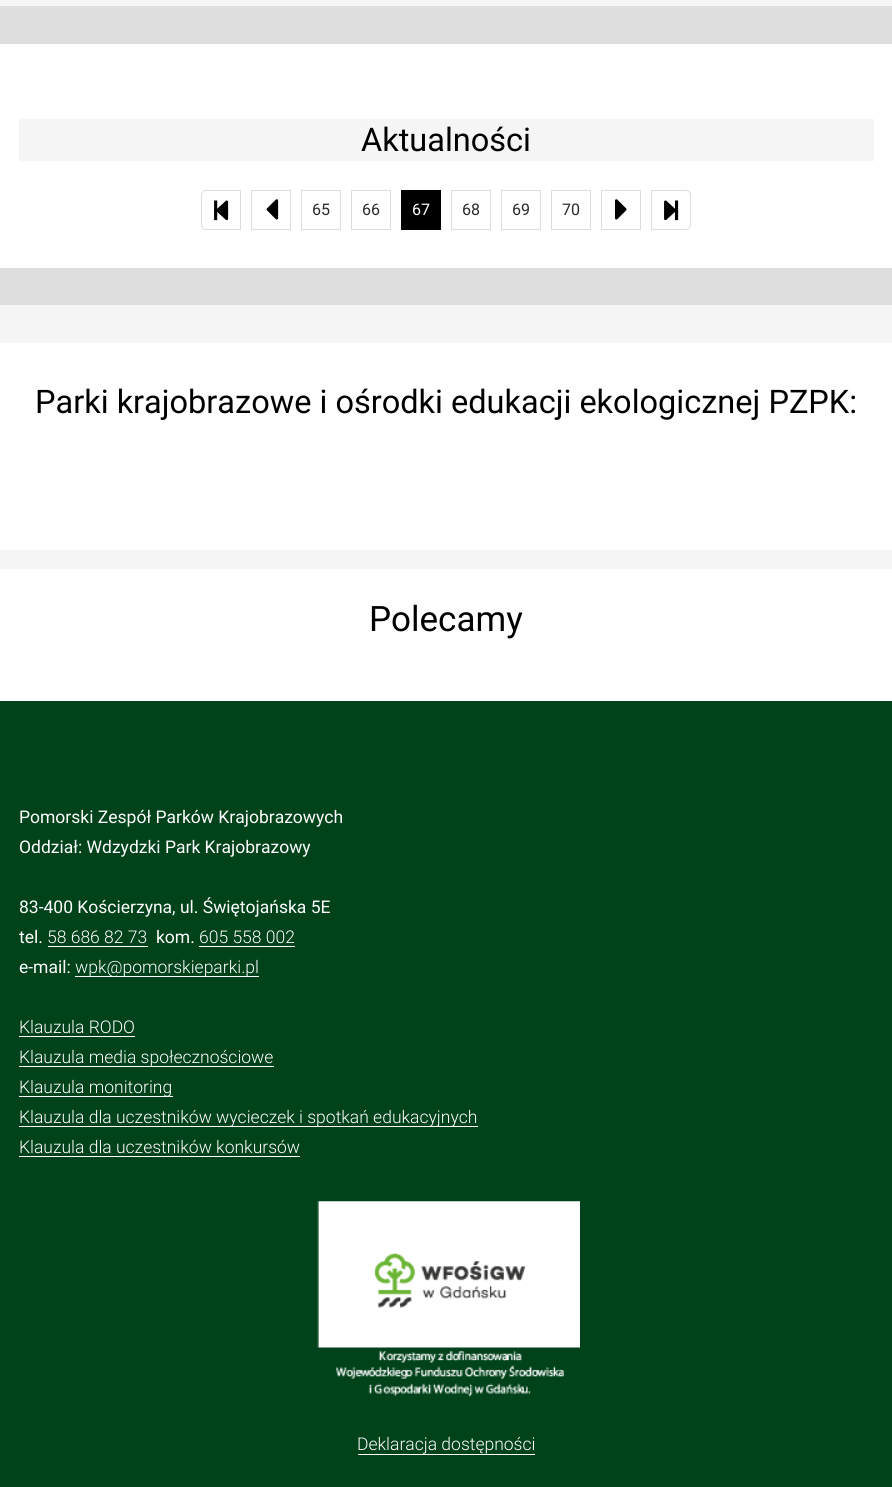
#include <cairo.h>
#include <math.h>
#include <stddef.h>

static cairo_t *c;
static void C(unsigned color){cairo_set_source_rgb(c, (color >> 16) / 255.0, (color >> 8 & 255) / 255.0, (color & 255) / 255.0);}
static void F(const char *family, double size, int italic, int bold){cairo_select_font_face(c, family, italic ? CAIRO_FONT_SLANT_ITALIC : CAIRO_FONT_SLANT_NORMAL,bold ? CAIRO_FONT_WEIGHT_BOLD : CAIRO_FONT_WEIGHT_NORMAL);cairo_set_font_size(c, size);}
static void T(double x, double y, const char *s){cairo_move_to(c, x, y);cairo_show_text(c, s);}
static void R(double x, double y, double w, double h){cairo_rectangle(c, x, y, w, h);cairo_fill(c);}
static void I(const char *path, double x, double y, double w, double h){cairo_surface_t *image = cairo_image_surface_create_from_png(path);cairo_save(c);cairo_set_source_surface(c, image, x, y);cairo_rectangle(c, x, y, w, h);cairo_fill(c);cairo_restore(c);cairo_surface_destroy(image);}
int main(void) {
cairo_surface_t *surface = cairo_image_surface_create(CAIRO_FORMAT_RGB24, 892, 1487);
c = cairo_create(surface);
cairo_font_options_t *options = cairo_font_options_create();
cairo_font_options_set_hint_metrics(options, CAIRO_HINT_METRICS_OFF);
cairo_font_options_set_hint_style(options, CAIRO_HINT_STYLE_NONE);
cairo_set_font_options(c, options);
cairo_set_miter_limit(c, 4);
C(0xf5f5f5);
cairo_paint(c);
C(0xdedede);
R(0,6,892,299);
C(0xffffff);
R(0,44,892,224);
C(0xf5f5f5);
R(19,119,855,42);
F("Roboto",32.5,0,0);
C(0x000000);
T(361,151,"Aktualności");
cairo_new_path(c);
cairo_move_to(c,206,190.5);
cairo_line_to(c,240.5,190.5);
cairo_line_to(c,240.5,229.5);
cairo_line_to(c,206,229.5);
cairo_curve_to(c,203.5,229.5,201.5,227.5,201.5,225);
cairo_line_to(c,201.5,195);
cairo_curve_to(c,201.5,192.5,203.5,190.5,206,190.5);
cairo_close_path(c);
C(0xdddddd);
cairo_set_line_width(c,1);
cairo_stroke(c);
I("1.png",214,200,15,21);
cairo_rectangle(c,251.5,190.5,39,39);
cairo_stroke(c);
I("2.png",266,199,13,21);
cairo_rectangle(c,301.5,190.5,39,39);
cairo_stroke(c);
F("Roboto",16,0,0);
C(0x292929);
T(312,215,"65");
cairo_rectangle(c,351.5,190.5,39,39);
C(0xdddddd);
cairo_stroke(c);
C(0x292929);
T(362,215,"66");
C(0x000000);
R(401,190,40,40);
C(0xffffff);
T(412,215,"67");
cairo_rectangle(c,451.5,190.5,39,39);
C(0xdddddd);
cairo_stroke(c);
C(0x292929);
T(462,215,"68");
cairo_rectangle(c,501.5,190.5,39,39);
C(0xdddddd);
cairo_stroke(c);
C(0x292929);
T(512,215,"69");
cairo_rectangle(c,551.5,190.5,39,39);
C(0xdddddd);
cairo_stroke(c);
C(0x292929);
T(562,215,"70");
cairo_rectangle(c,601.5,190.5,39,39);
C(0xdddddd);
cairo_stroke(c);
I("3.png",615,199,12,21);
cairo_new_path(c);
cairo_move_to(c,651.5,190.5);
cairo_line_to(c,686,190.5);
cairo_curve_to(c,688.5,190.5,690.5,192.5,690.5,195);
cairo_line_to(c,690.5,225);
cairo_curve_to(c,690.5,227.5,688.5,229.5,686,229.5);
cairo_line_to(c,651.5,229.5);
cairo_close_path(c);
cairo_stroke(c);
I("4.png",664,200,15,21);
C(0xffffff);
R(0,343,892,207);
F("Roboto",32.5,0,0);
C(0x000000);
T(35,413,"Parki krajobrazowe i ośrodki edukacji ekologicznej PZPK:");
C(0xffffff);
R(0,569,892,132);
F("Roboto",35,0,0);
C(0x000000);
T(369,631,"Polecamy");
C(0x00421a);
R(0,701,892,786);
F("Roboto",17.5,0,0);
C(0xffffff);
T(19,823,"Pomorski Zespół Parków Krajobrazowych");
T(19,853,"Oddział: Wdzydzki Park Krajobrazowy");
T(19,913,"83-400 Kościerzyna, ul. Świętojańska 5E");
T(19,943,"tel.");
F("Roboto Light",17.5,0,0);
T(47,943,"58 686 82 73");
R(48,946,100,1);
F("Roboto",17.5,0,0);
T(156,943,"kom.");
F("Roboto Light",17.5,0,0);
T(199,943,"605 558 002");
R(199,946,96,1);
F("Roboto",17.5,0,0);
T(19,973,"e-mail:");
F("Roboto Light",17.5,0,0);
T(75,973,"wpk@pomorskieparki.pl");
R(75,976,184,1);
T(19,1033,"Klauzula RODO");
R(19,1036,116,1);
T(19,1063,"Klauzula media społecznościowe");
R(19,1066,255,1);
T(19,1093,"Klauzula monitoring");
R(19,1096,154,1);
T(19,1123,"Klauzula dla uczestników wycieczek i spotkań edukacyjnych");
R(19,1126,459,1);
T(19,1153,"Klauzula dla uczestników konkursów");
R(19,1156,281,1);
I("5.png",317,1201,263,196);
T(357,1450,"Deklaracja dostępności");
R(358,1454,177,1);
cairo_surface_write_to_png(surface, "o.png");
cairo_font_options_destroy(options);
cairo_destroy(c);
cairo_surface_destroy(surface);
return 0;
}
